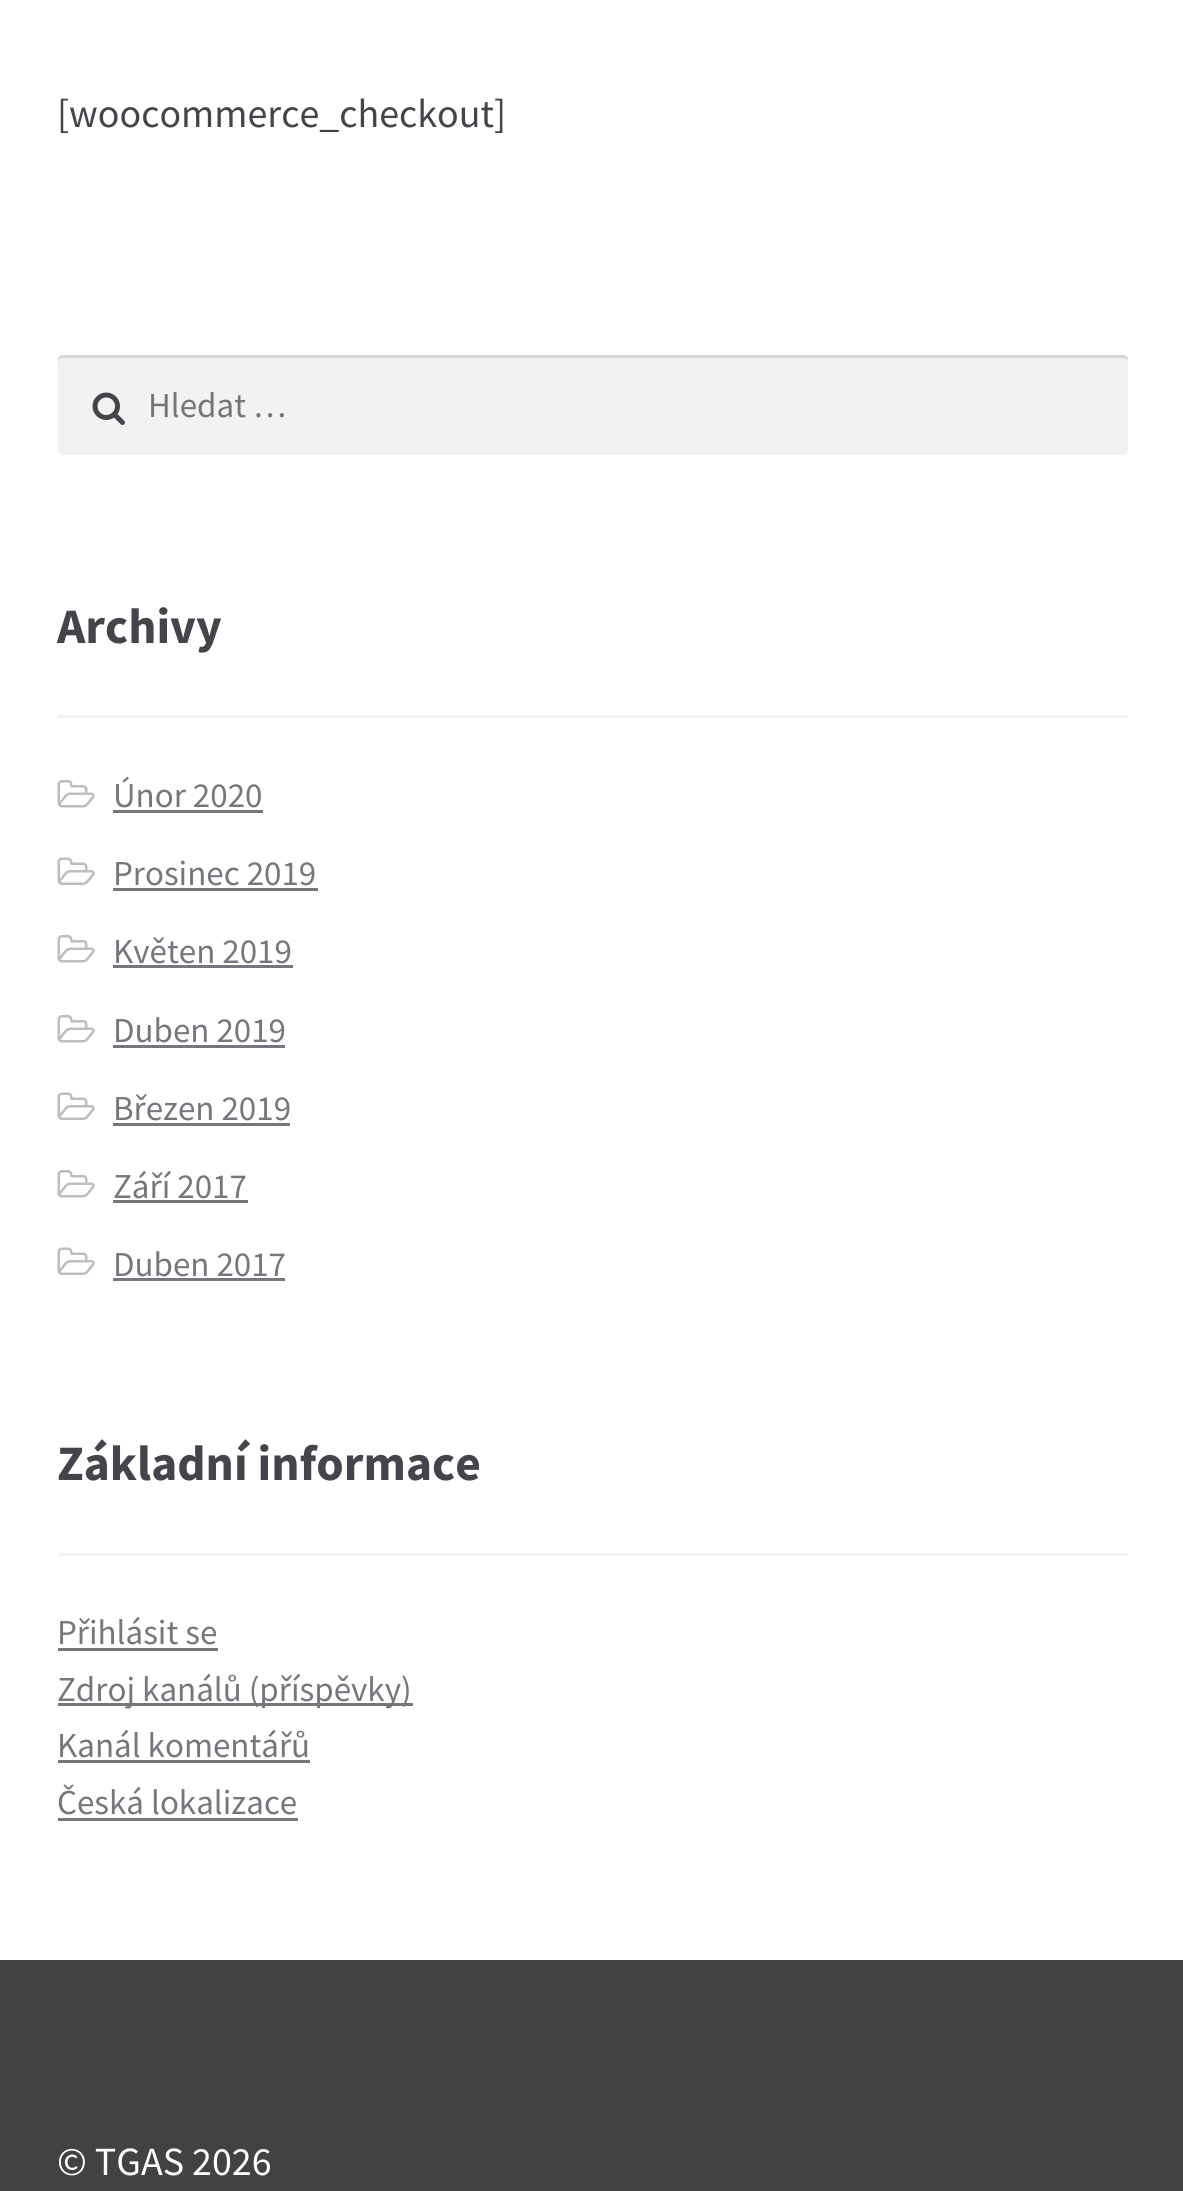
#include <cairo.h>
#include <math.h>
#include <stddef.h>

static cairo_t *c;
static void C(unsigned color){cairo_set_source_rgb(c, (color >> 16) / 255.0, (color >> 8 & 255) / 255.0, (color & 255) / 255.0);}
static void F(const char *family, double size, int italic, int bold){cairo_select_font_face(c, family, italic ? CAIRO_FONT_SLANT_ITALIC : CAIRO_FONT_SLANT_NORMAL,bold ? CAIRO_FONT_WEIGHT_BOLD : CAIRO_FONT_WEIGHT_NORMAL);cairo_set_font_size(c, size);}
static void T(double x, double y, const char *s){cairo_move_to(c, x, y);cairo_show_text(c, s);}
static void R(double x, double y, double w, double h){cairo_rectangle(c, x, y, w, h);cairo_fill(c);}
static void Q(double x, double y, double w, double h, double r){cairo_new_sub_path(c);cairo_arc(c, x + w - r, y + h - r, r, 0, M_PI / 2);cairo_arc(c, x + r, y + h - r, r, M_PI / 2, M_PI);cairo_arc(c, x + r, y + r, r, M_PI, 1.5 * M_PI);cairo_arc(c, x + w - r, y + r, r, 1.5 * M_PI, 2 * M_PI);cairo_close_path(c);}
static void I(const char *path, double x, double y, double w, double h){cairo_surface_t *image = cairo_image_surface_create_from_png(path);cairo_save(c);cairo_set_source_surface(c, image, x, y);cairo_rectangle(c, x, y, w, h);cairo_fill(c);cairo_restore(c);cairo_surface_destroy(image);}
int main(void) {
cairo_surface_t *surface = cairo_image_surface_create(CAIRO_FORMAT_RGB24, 1183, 2191);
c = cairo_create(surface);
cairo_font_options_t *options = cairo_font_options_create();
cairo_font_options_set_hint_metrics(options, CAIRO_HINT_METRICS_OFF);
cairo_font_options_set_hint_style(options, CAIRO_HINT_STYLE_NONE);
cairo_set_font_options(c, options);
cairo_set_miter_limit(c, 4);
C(0xffffff);
cairo_paint(c);
F("Source Sans Pro",40,0,0);
C(0x43454b);
T(57,127,"[woocommerce_checkout]");
C(0xf2f2f2);
Q(58,355,1070,100,5);
cairo_fill(c);
I("1.png",92,392,33,33);
cairo_set_source_rgba(c,0,0,0,0.12);
cairo_new_path(c);
cairo_move_to(c,62,358);
cairo_line_to(c,1122,358);
cairo_curve_to(c,1125,358,1128,360,1128,362);
cairo_line_to(c,1128,360);
cairo_curve_to(c,1128,357,1126,355,1123,355);
cairo_line_to(c,63,355);
cairo_curve_to(c,60,355,58,357,58,360);
cairo_line_to(c,58,362);
cairo_curve_to(c,58,360,60,358,62,358);
cairo_close_path(c);
cairo_fill(c);
F("Source Sans Pro",35,0,0);
C(0x757575);
T(148,417,"Hledat …");
C(0xf2f2f2);
R(58,715,1070,3);
F("Source Sans Pro",49.5,0,1);
C(0x43454b);
T(57,643,"Archivy");
I("2.png",57,780,38,28);
F("Source Sans Pro",35,0,0);
C(0x75777d);
T(113,807,"Únor 2020");
R(113,810,150,3);
I("3.png",57,857,38,28);
T(113,885,"Prosinec 2019");
R(113,888,205,3);
I("2.png",57,935,38,28);
T(113,963,"Květen 2019");
R(113,965,180,3);
I("2.png",57,1015,38,28);
T(113,1042,"Duben 2019");
R(113,1045,172,3);
I("3.png",57,1092,38,28);
T(113,1120,"Březen 2019");
R(113,1123,177,3);
I("2.png",57,1170,38,28);
T(113,1198,"Září 2017");
R(113,1200,135,3);
I("3.png",57,1247,38,28);
T(113,1276,"Duben 2017");
R(113,1278,172,3);
C(0xf2f2f2);
R(58,1553,1070,3);
F("Source Sans Pro",49.5,0,1);
C(0x43454b);
T(57,1480,"Základní informace");
F("Source Sans Pro",35,0,0);
C(0x75777d);
T(57,1644,"Přihlásit se");
R(58,1648,160,3);
R(58,1703,355,3);
T(57,1701,"Zdroj kanálů (příspěvky)");
T(57,1757,"Kanál komentářů");
R(58,1760,252,3);
T(57,1814,"Česká lokalizace");
R(58,1818,240,3);
C(0x424242);
R(0,1960,1183,231);
F("Source Sans Pro",40,0,0);
C(0xffffff);
T(57,2175,"© TGAS 2026");
cairo_surface_write_to_png(surface, "o.png");
cairo_font_options_destroy(options);
cairo_destroy(c);
cairo_surface_destroy(surface);
return 0;
}
